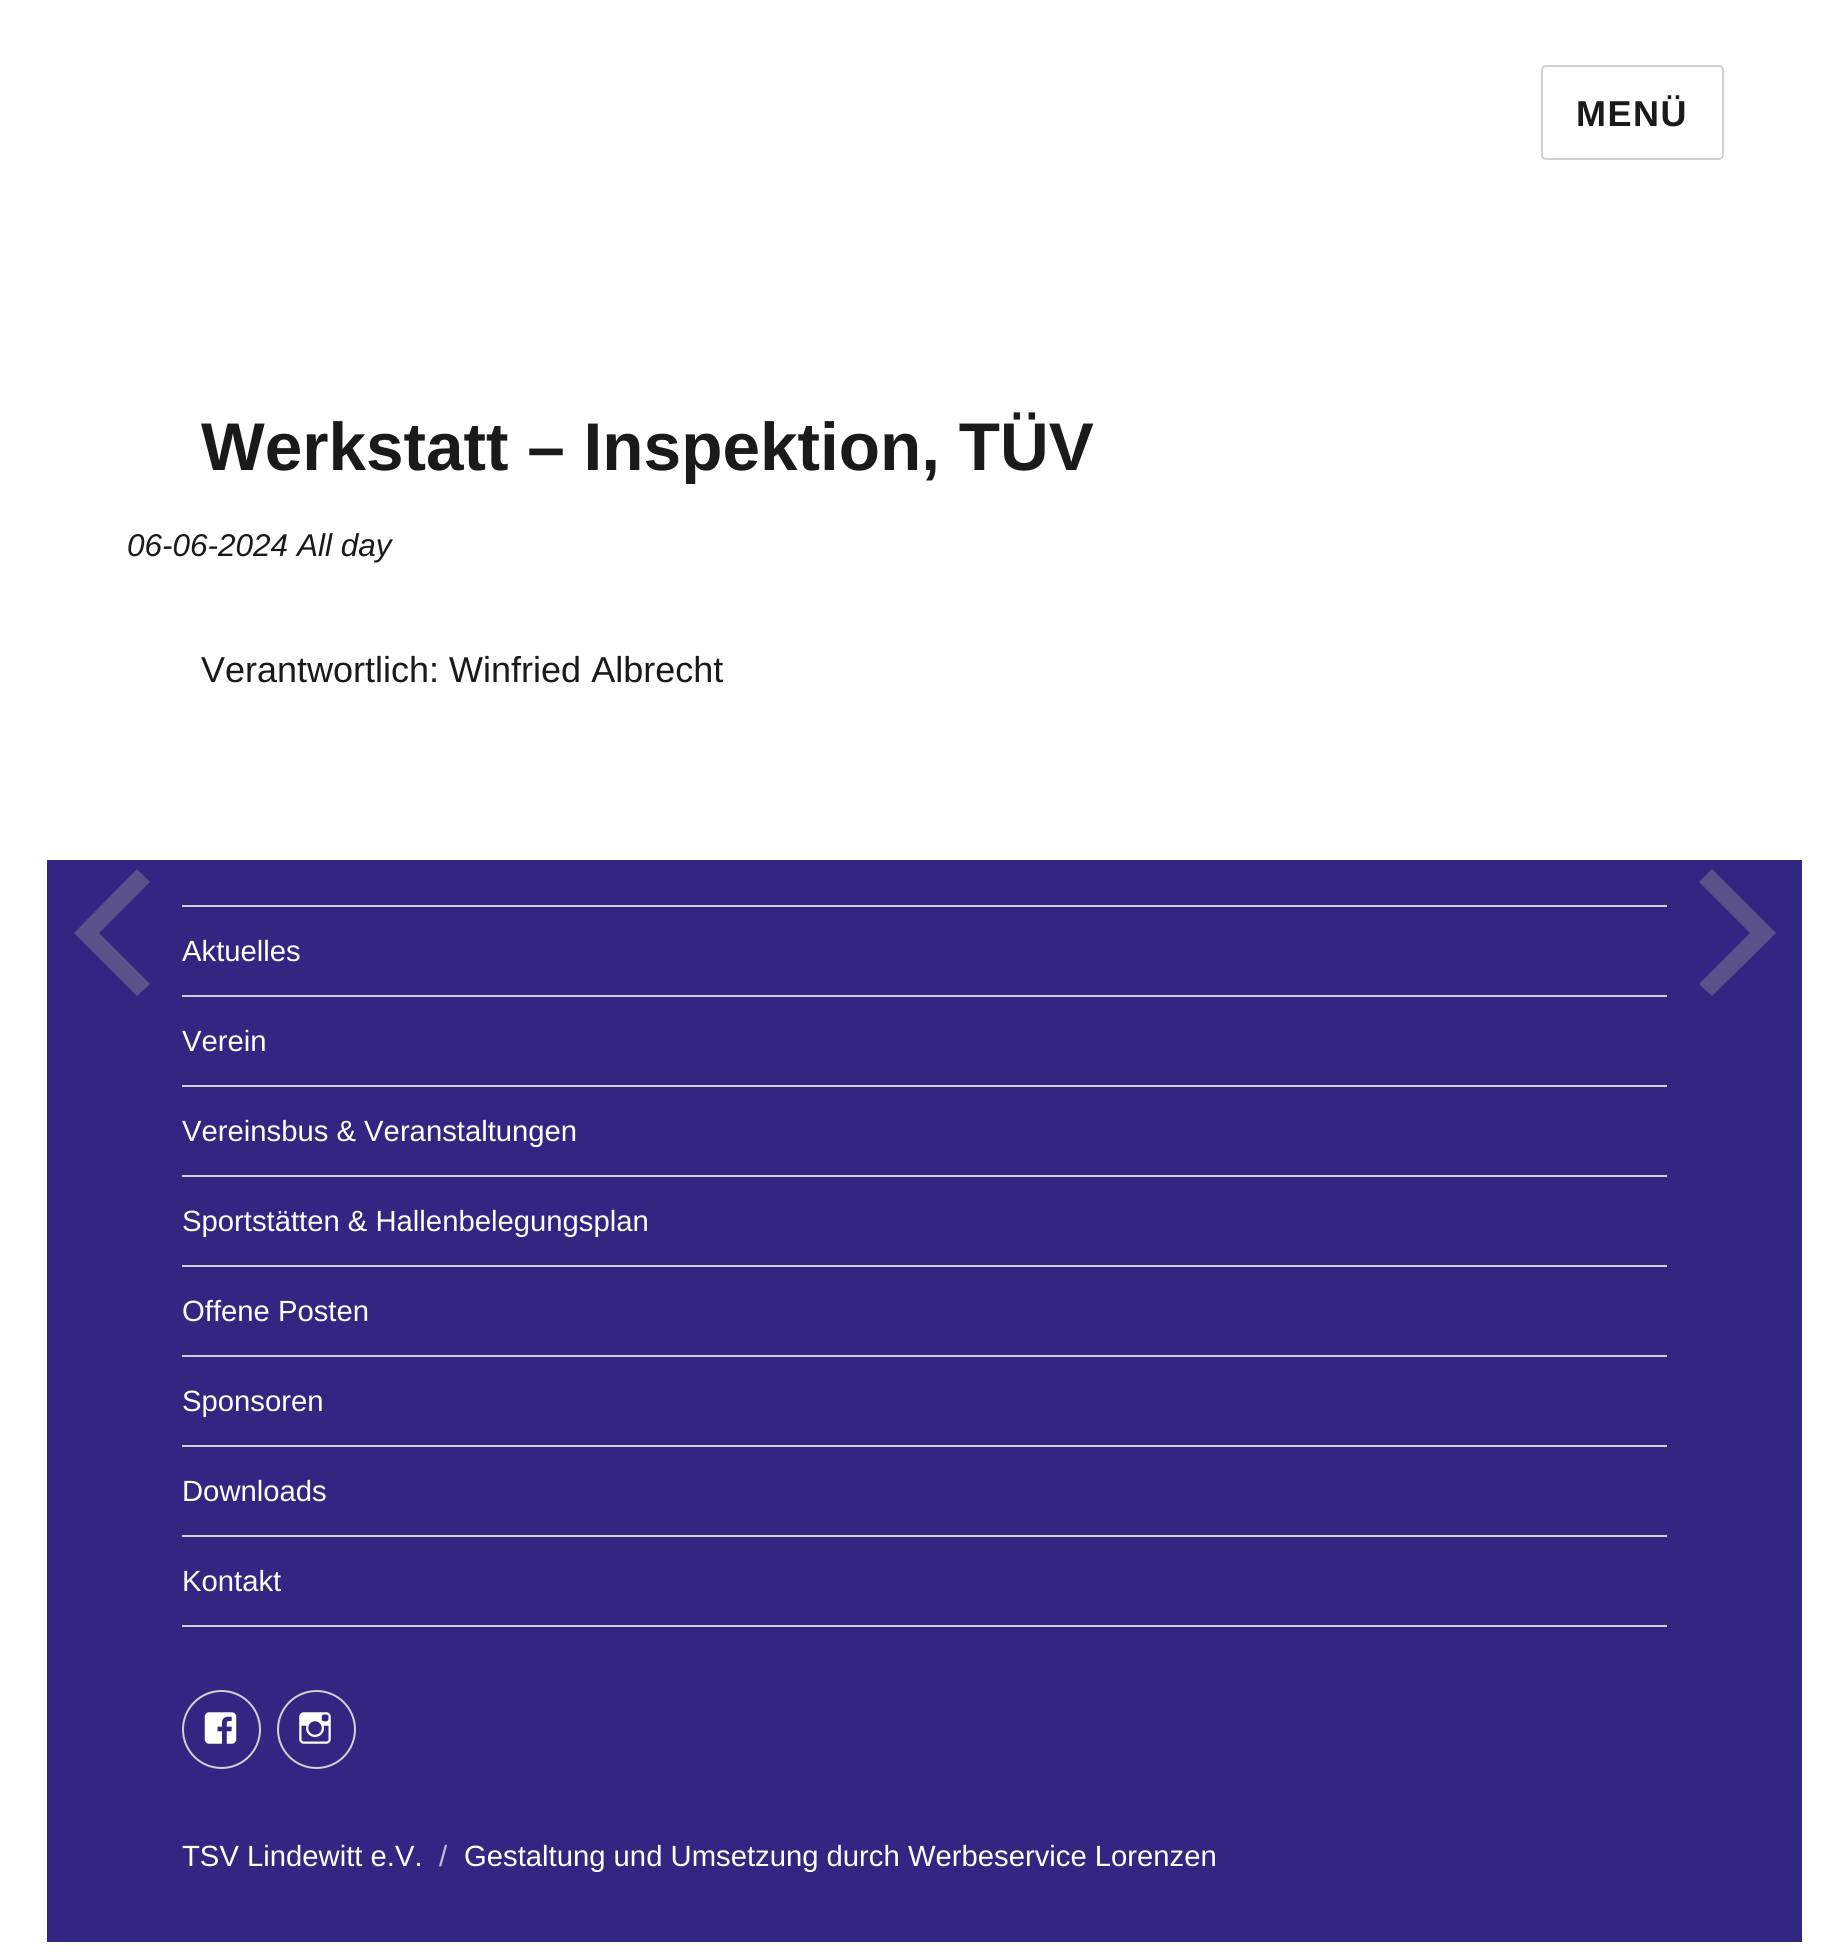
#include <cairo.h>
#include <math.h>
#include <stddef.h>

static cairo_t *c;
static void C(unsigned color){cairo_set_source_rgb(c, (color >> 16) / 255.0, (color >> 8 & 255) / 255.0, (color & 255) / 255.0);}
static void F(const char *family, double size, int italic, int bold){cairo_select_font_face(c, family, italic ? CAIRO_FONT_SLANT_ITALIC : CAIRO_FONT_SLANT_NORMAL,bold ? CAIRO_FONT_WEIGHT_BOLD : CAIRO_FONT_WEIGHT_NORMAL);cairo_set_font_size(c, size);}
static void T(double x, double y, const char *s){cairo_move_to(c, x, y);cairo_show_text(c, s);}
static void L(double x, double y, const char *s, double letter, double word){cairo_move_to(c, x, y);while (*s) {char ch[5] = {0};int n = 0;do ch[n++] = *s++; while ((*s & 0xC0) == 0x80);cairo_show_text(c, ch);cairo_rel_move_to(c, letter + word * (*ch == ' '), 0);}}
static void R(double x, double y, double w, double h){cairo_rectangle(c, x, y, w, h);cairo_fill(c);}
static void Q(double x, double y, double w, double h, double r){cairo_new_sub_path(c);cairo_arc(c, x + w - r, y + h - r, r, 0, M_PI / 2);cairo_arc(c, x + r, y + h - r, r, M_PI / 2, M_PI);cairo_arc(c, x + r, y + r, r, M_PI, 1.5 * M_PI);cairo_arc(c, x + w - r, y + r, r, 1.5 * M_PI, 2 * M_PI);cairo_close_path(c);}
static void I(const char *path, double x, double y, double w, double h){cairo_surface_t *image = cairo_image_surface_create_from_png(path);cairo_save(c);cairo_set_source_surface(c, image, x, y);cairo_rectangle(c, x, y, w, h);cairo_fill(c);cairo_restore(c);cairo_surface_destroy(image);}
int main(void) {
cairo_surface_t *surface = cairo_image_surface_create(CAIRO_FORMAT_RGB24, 1848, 1954);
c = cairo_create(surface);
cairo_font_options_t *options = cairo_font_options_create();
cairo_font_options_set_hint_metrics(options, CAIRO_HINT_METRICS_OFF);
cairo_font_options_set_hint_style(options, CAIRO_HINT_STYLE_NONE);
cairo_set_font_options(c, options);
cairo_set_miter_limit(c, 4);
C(0xffffff);
cairo_paint(c);
Q(1542,66,181,93,4);
C(0xd1d1d1);
cairo_stroke(c);
F("Liberation Sans",36,0,1);
C(0x1a1a1a);
L(1576,126,"MENÜ",1.5,0);
F("Liberation Sans",67.5,0,1);
T(201,470,"Werkstatt – Inspektion, TÜV");
F("Liberation Sans",31.5,1,0);
T(127,556,"06-06-2024 All day");
F("Liberation Sans",36,0,0);
T(201,682,"Verantwortlich: Winfried Albrecht");
C(0x312783);
R(47,860,1755,1082);
C(0xd1d1d1);
R(182,1625,1485,2);
R(182,905,1485,2);
F("Liberation Sans",29.25,0,0);
C(0xffffff);
T(182,961,"Aktuelles");
C(0xd1d1d1);
R(182,995,1485,2);
C(0xffffff);
T(182,1051,"Verein");
C(0xd1d1d1);
R(182,1085,1485,2);
C(0xffffff);
T(182,1141,"Vereinsbus & Veranstaltungen");
C(0xd1d1d1);
R(182,1175,1485,2);
C(0xffffff);
T(182,1231,"Sportstätten & Hallenbelegungsplan");
C(0xd1d1d1);
R(182,1265,1485,2);
C(0xffffff);
T(182,1321,"Offene Posten");
C(0xd1d1d1);
R(182,1355,1485,2);
C(0xffffff);
T(182,1411,"Sponsoren");
C(0xd1d1d1);
R(182,1445,1485,2);
C(0xffffff);
T(182,1501,"Downloads");
C(0xd1d1d1);
R(182,1535,1485,2);
C(0xffffff);
T(182,1591,"Kontakt");
cairo_new_path(c);
cairo_arc(c,221.5,1729.5,38.5,0,2 * M_PI);
C(0xd1d1d1);
cairo_stroke(c);
I("1.png",204,1712,33,32);
cairo_arc(c,316.5,1729.5,38.5,0,2 * M_PI);
cairo_stroke(c);
I("2.png",299,1712,32,32);
C(0xffffff);
T(182,1866,"TSV Lindewitt e.V.");
C(0xc1beda);
T(439,1866,"/");
C(0xffffff);
T(464,1866,"Gestaltung und Umsetzung durch Werbeservice Lorenzen");
C(0x59538b);
cairo_new_path(c);
cairo_move_to(c,137,996);
cairo_line_to(c,74,933);
cairo_line_to(c,99,933);
cairo_line_to(c,150,984);
cairo_close_path(c);
cairo_fill(c);
cairo_new_path(c);
cairo_move_to(c,74,933);
cairo_line_to(c,137,869);
cairo_line_to(c,150,882);
cairo_line_to(c,99,933);
cairo_close_path(c);
cairo_fill(c);
cairo_new_path(c);
cairo_move_to(c,1712,869);
cairo_line_to(c,1776,933);
cairo_line_to(c,1750,933);
cairo_line_to(c,1699,882);
cairo_close_path(c);
cairo_fill(c);
cairo_new_path(c);
cairo_move_to(c,1776,933);
cairo_line_to(c,1712,996);
cairo_line_to(c,1699,984);
cairo_line_to(c,1750,933);
cairo_close_path(c);
cairo_fill(c);
cairo_surface_write_to_png(surface, "o.png");
cairo_font_options_destroy(options);
cairo_destroy(c);
cairo_surface_destroy(surface);
return 0;
}
